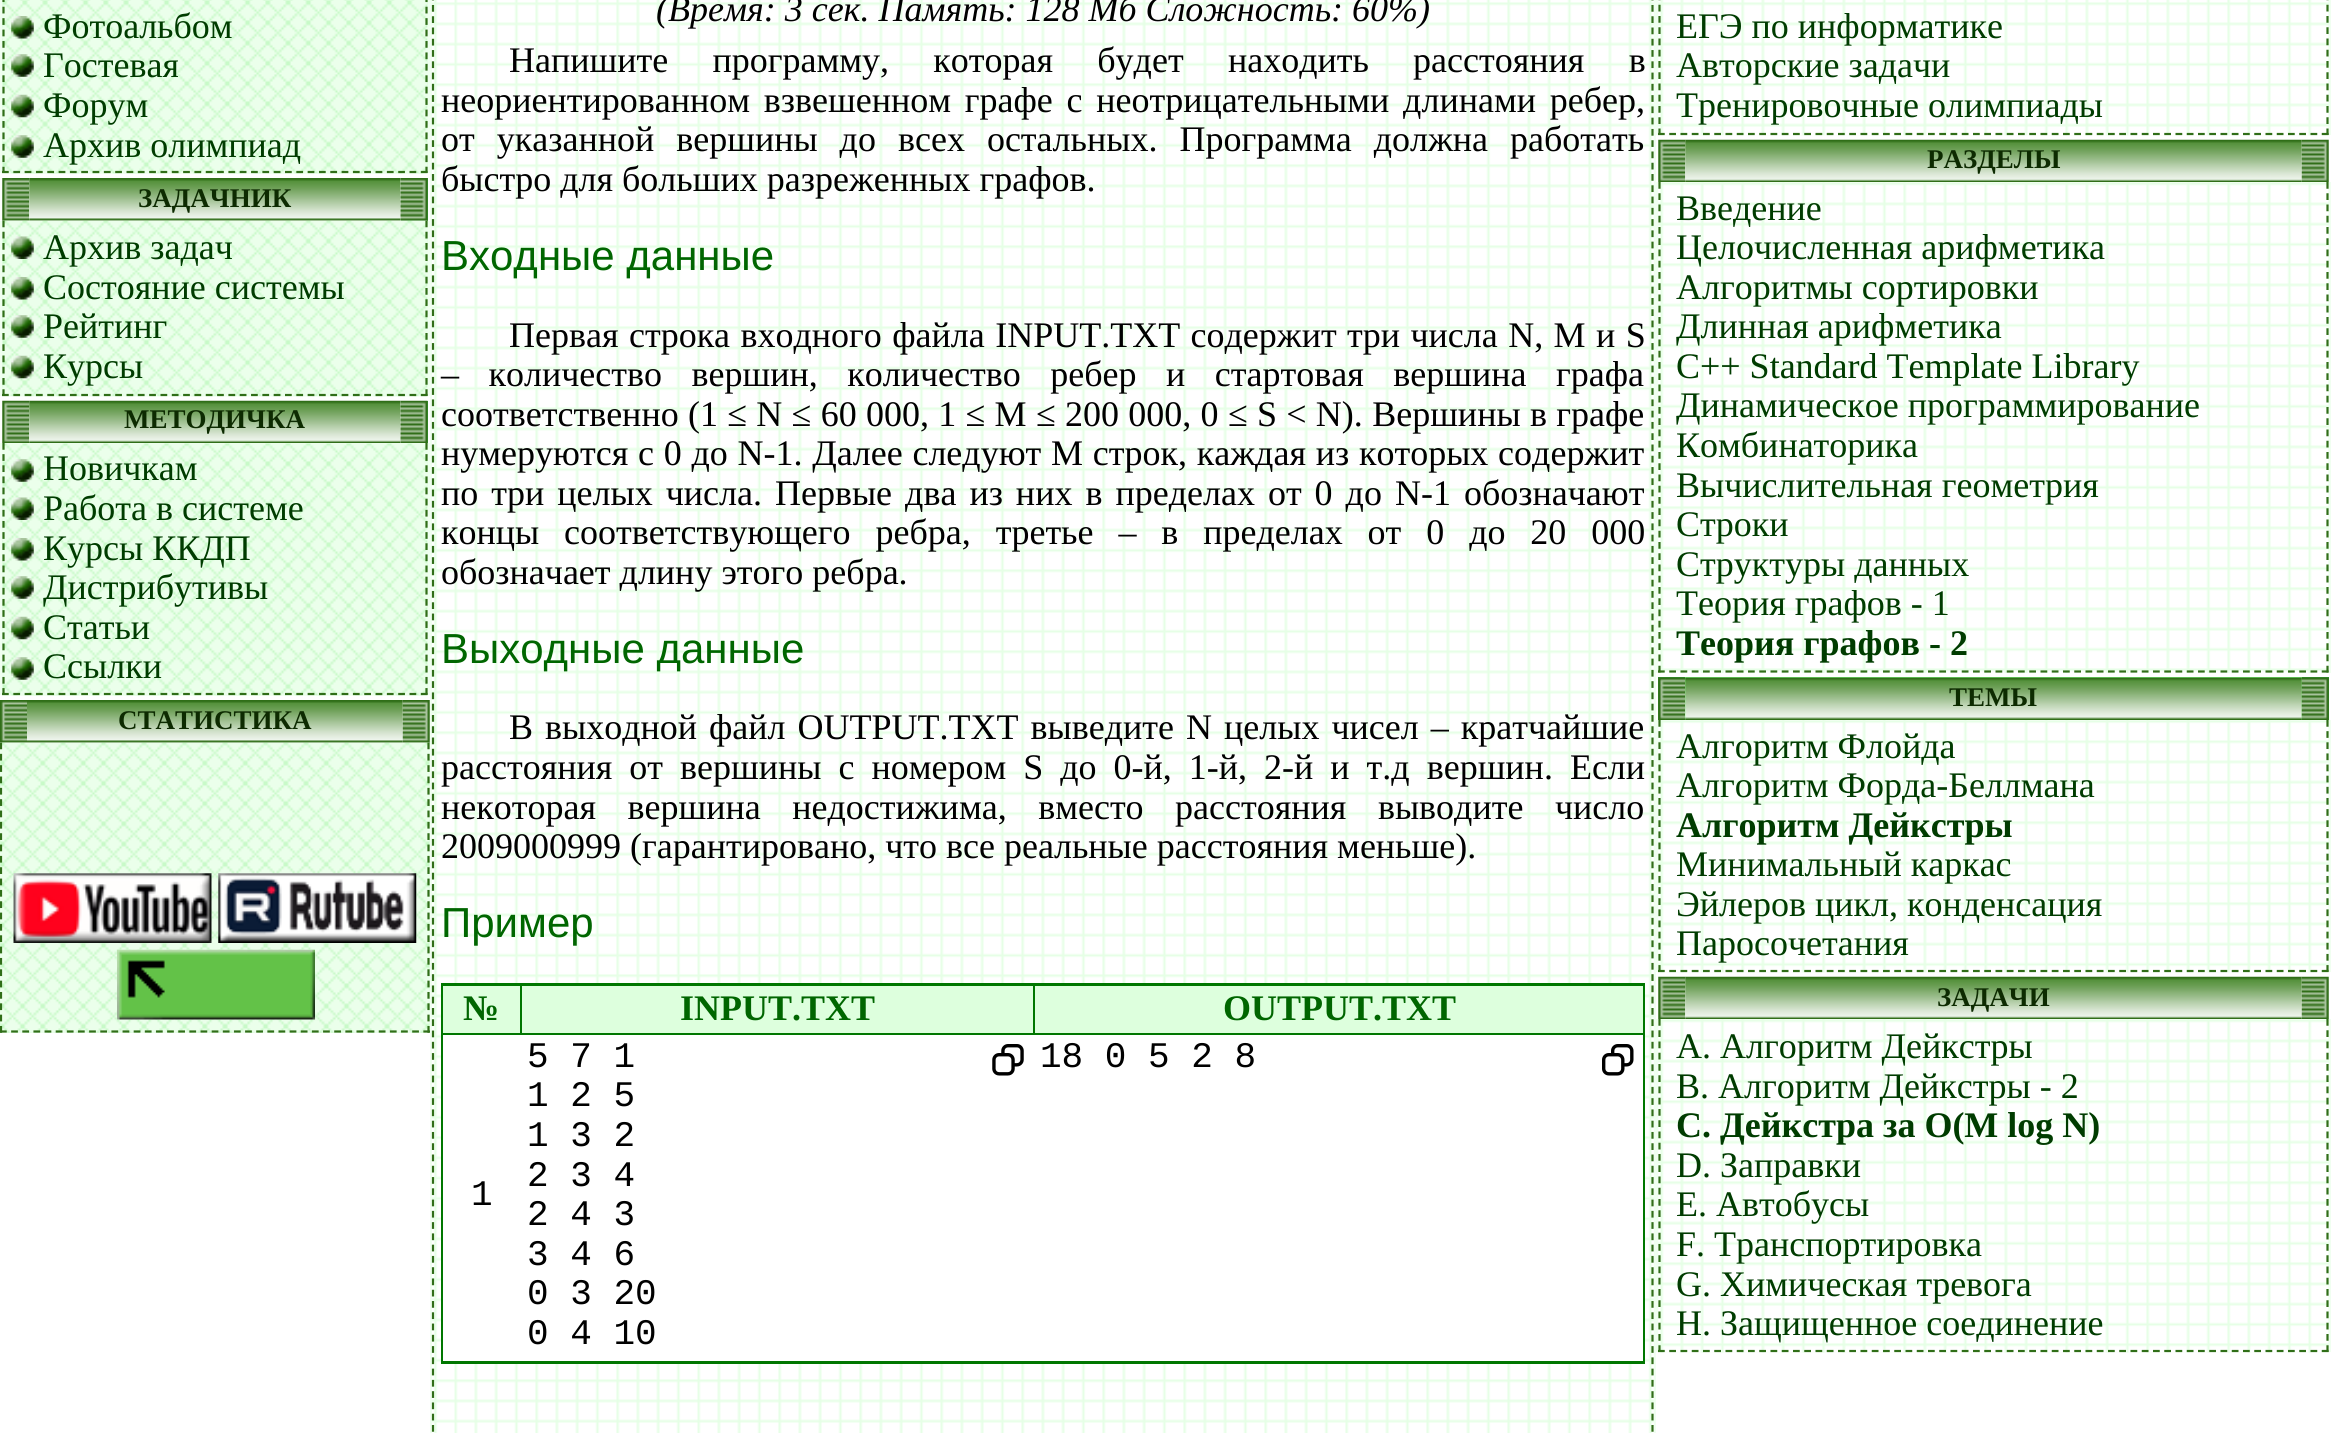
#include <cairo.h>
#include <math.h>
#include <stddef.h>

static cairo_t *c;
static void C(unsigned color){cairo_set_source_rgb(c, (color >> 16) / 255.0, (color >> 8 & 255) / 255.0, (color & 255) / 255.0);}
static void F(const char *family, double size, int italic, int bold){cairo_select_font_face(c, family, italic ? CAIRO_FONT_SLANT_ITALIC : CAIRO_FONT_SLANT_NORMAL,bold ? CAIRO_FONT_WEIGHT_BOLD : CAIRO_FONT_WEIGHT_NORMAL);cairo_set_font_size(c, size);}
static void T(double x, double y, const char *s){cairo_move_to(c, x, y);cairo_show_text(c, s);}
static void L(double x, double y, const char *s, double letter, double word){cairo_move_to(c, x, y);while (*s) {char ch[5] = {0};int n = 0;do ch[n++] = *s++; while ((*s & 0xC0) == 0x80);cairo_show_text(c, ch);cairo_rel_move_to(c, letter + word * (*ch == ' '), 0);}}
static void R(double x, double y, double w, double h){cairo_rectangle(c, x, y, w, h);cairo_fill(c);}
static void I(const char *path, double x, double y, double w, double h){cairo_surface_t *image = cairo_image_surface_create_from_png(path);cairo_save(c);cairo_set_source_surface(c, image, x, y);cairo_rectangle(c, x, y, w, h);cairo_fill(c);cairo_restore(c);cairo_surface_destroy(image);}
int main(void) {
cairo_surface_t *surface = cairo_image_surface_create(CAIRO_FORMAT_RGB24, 2331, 1433);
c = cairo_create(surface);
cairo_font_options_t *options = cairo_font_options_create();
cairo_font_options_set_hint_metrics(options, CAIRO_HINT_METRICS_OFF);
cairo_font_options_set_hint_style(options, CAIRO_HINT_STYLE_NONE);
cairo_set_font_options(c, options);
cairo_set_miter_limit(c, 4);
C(0xffffff);
cairo_paint(c);
C(0xf0fff0);
R(0,0,430,173);
I("1.png",2,0,426,174);
cairo_new_path(c);
cairo_move_to(c,426.5,-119);
cairo_line_to(c,426.5,173);
C(0x306e18);
cairo_set_line_width(c,2.2);
cairo_set_dash(c,(double[]){6.75,4.68},2,0);
cairo_stroke(c);
cairo_new_path(c);
cairo_move_to(c,2,172);
cairo_line_to(c,427.5,172);
cairo_set_dash(c,(double[]){6.75,4.57},2,0);
cairo_stroke(c);
cairo_new_path(c);
cairo_move_to(c,3.5,-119);
cairo_line_to(c,3.5,173);
cairo_set_dash(c,(double[]){6.75,4.68},2,0);
cairo_stroke(c);
I("2.png",11,16,23,23);
F("Liberation Serif",36,0,0);
C(0x003c00);
T(43,38,"Фотоальбом");
I("3.png",11,54,23,23);
T(43,77,"Гостевая");
I("4.png",11,94,23,24);
T(43,117,"Форум");
I("3.png",11,135,23,23);
T(43,157,"Архив олимпиад");
I("5.png",2,178,28,43);
I("6.png",29,178,372,43);
F("Liberation Serif",27,0,1);
C(0x0d2b01);
T(138,207,"ЗАДАЧНИК");
C(0x339933);
R(401,178,27,43);
I("7.png",400,178,28,43);
C(0xf0fff0);
R(0,221,430,175);
I("8.png",2,220,426,177);
cairo_new_path(c);
cairo_move_to(c,426.5,220.5);
cairo_line_to(c,426.5,396);
C(0x306e18);
cairo_set_dash(c,(double[]){6.75,4.5},2,0);
cairo_stroke(c);
cairo_new_path(c);
cairo_move_to(c,2,395);
cairo_line_to(c,427.5,395);
cairo_set_dash(c,(double[]){6.75,4.57},2,0);
cairo_stroke(c);
cairo_new_path(c);
cairo_move_to(c,3.5,220.5);
cairo_line_to(c,3.5,396);
cairo_set_dash(c,(double[]){6.75,4.5},2,0);
cairo_stroke(c);
I("9.png",11,236,23,23);
F("Liberation Serif",36,0,0);
C(0x003c00);
T(43,259,"Архив задач");
I("10.png",11,277,23,23);
T(43,299,"Состояние системы");
I("11.png",11,315,23,23);
T(43,338,"Рейтинг");
I("12.png",11,355,23,24);
T(43,378,"Курсы");
I("13.png",2,400,28,43);
I("14.png",29,400,372,43);
F("Liberation Serif",27,0,1);
C(0x0d2b01);
T(124,428,"МЕТОДИЧКА");
C(0x339933);
R(427,401,1,42);
I("15.png",400,400,28,43);
C(0xf0fff0);
R(0,443,430,252);
I("16.png",2,443,426,253);
cairo_new_path(c);
cairo_move_to(c,426.5,443);
cairo_line_to(c,426.5,695);
C(0x306e18);
cairo_set_dash(c,(double[]){6.75,4.39},2,0);
cairo_stroke(c);
cairo_new_path(c);
cairo_move_to(c,2,694);
cairo_line_to(c,427.5,694);
cairo_set_dash(c,(double[]){6.75,4.57},2,0);
cairo_stroke(c);
cairo_new_path(c);
cairo_move_to(c,3.5,443);
cairo_line_to(c,3.5,695);
cairo_set_dash(c,(double[]){6.75,4.39},2,0);
cairo_stroke(c);
I("17.png",11,459,23,23);
F("Liberation Serif",36,0,0);
C(0x003c00);
T(43,480,"Новичкам");
I("18.png",11,497,23,23);
T(43,520,"Работа в системе");
I("2.png",11,538,23,23);
T(43,560,"Курсы ККДП");
I("3.png",11,576,23,23);
T(43,599,"Дистрибутивы");
I("4.png",11,616,23,24);
T(43,639,"Статьи");
I("3.png",11,657,23,23);
T(43,678,"Ссылки");
I("19.png",0,700,27,43);
I("20.png",27,700,376,43);
F("Liberation Serif",27,0,1);
C(0x0d2b01);
T(118,729,"СТАТИСТИКА");
I("21.png",402,700,28,43);
I("22.png",0,742,430,291);
cairo_new_path(c);
cairo_move_to(c,428.5,742.5);
cairo_line_to(c,428.5,1033);
C(0x306e18);
cairo_set_dash(c,(double[]){6.75,4.59},2,0);
cairo_stroke(c);
cairo_new_path(c);
cairo_move_to(c,0,1031.5);
cairo_line_to(c,430,1031.5);
cairo_set_dash(c,(double[]){6.75,4.39},2,0);
cairo_stroke(c);
cairo_new_path(c);
cairo_move_to(c,1,742.5);
cairo_line_to(c,1,1033);
cairo_set_dash(c,(double[]){6.75,4.59},2,0);
cairo_stroke(c);
I("23.png",13,873,199,70);
I("24.png",218,873,199,70);
I("25.png",117,949,198,71);
C(0xf0fff0);
R(430,0,1226,1433);
I("26.png",432,0,1222,1433);
cairo_new_path(c);
cairo_move_to(c,1652.5,-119);
cairo_line_to(c,1652.5,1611);
C(0x306e18);
cairo_set_dash(c,(double[]){6.75,4.52},2,0);
cairo_stroke(c);
cairo_new_path(c);
cairo_move_to(c,433,-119);
cairo_line_to(c,433,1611);
cairo_stroke(c);
F("Liberation Serif",36,1,0);
C(0x000000);
T(656,21,"(Время: 3 сек. Память: 128 Мб Сложность: 60%)");
F("Liberation Serif",36,0,0);
L(509,72,"Напишите программу, которая будет находить расстояния в",0,35.25);
L(441,112,"неориентированном взвешенном графе с неотрицательными длинами ребер,",0,4.75);
L(441,151,"от указанной вершины до всех остальных. Программа должна работать",0,13);
T(441,191,"быстро для больших разреженных графов.");
F("Liberation Sans",42,0,0);
C(0x006600);
T(441,270,"Входные данные");
F("Liberation Serif",36,0,0);
C(0x000000);
L(509,347,"Первая строка входного файла INPUT.TXT содержит три числа N, M и S",0,1.4);
L(441,386,"– количество вершин, количество ребер и стартовая вершина графа",0,20.5);
L(441,426,"соответственно (1 ≤ N ≤ 60 000, 1 ≤ M ≤ 200 000, 0 ≤ S < N). Вершины в графе",0,.3);
L(441,465,"нумеруются с 0 до N-1. Далее следуют M строк, каждая из которых содержит",0,.75);
L(441,505,"по три целых числа. Первые два из них в пределах от 0 до N-1 обозначают",0,4);
L(441,544,"концы соответствующего ребра, третье – в пределах от 0 до 20 000",0,15.9);
T(441,584,"обозначает длину этого ребра.");
F("Liberation Sans",42,0,0);
C(0x006600);
T(441,663,"Выходные данные");
F("Liberation Serif",36,0,0);
C(0x000000);
L(509,739,"В выходной файл OUTPUT.TXT выведите N целых чисел – кратчайшие",0,3);
L(441,779,"расстояния от вершины с номером S до 0-й, 1-й, 2-й и т.д вершин. Если",0,8);
L(441,819,"некоторая вершина недостижима, вместо расстояния выводите число",0,22.5);
T(441,858,"2009000999 (гарантировано, что все реальные расстояния меньше).");
F("Liberation Sans",42,0,0);
C(0x006600);
T(441,937,"Пример");
C(0x007700);
R(441,983,1204,381);
C(0xddffdd);
R(443,986,77,47);
F("Liberation Serif",36,0,1);
C(0x006600);
T(463,1020,"№");
C(0xddffdd);
R(522,986,511,47);
C(0x006600);
T(680,1020,"INPUT.TXT");
C(0xddffdd);
R(1035,986,608,47);
C(0x006600);
T(1223,1020,"OUTPUT.TXT");
C(0xffffff);
R(443,1035,1200,326);
F("Liberation Mono",36,0,0);
C(0x000000);
T(471,1205,"1");
T(527,1067,"5 7 1");
I("27.png",992,1044,32,32);
T(527,1106,"1 2 5");
T(527,1146,"1 3 2");
T(527,1186,"2 3 4");
T(527,1225,"2 4 3");
T(527,1265,"3 4 6");
T(527,1304,"0 3 20");
T(527,1344,"0 4 10");
T(1040,1067,"18 0 5 2 8");
I("28.png",1602,1044,32,32);
C(0xf0fff0);
R(1656,0,675,135);
I("29.png",1658,0,671,136);
cairo_new_path(c);
cairo_move_to(c,2327.5,-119);
cairo_line_to(c,2327.5,135);
C(0x306e18);
cairo_set_dash(c,(double[]){6.75,4.5},2,0);
cairo_stroke(c);
cairo_new_path(c);
cairo_move_to(c,1658,134);
cairo_line_to(c,2329,134);
cairo_stroke(c);
cairo_new_path(c);
cairo_move_to(c,1659.5,-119);
cairo_line_to(c,1659.5,135);
cairo_stroke(c);
F("Liberation Serif",36,0,0);
C(0x003c00);
T(1676,38,"ЕГЭ по информатике");
T(1676,77,"Авторские задачи");
T(1676,117,"Тренировочные олимпиады");
I("30.png",1658,139,28,43);
I("31.png",1685,139,617,43);
F("Liberation Serif",27,0,1);
C(0x0d2b01);
T(1927,168,"РАЗДЕЛЫ");
I("32.png",2301,139,28,43);
C(0xf0fff0);
R(1656,182,675,491);
I("33.png",1658,182,671,491);
cairo_new_path(c);
cairo_move_to(c,2327.5,182);
cairo_line_to(c,2327.5,673);
C(0x306e18);
cairo_stroke(c);
cairo_new_path(c);
cairo_move_to(c,1658,671.5);
cairo_line_to(c,2329,671.5);
cairo_stroke(c);
cairo_new_path(c);
cairo_move_to(c,1659.5,182);
cairo_line_to(c,1659.5,673);
cairo_stroke(c);
F("Liberation Serif",36,0,0);
C(0x003c00);
T(1676,220,"Введение");
T(1676,259,"Целочисленная арифметика");
T(1676,299,"Алгоритмы сортировки");
T(1676,338,"Длинная арифметика");
T(1676,378,"C++ Standard Template Library");
T(1676,417,"Динамическое программирование");
T(1676,457,"Комбинаторика");
T(1676,497,"Вычислительная геометрия");
T(1676,536,"Строки");
T(1676,576,"Структуры данных");
T(1676,615,"Теория графов - 1");
F("Liberation Serif",36,0,1);
T(1676,655,"Теория графов - 2");
C(0x339933);
R(1658,677,27,43);
I("34.png",1658,677,27,43);
C(0x88ff88);
R(1685,677,617,43);
I("35.png",1685,677,617,43);
F("Liberation Serif",27,0,1);
C(0x0d2b01);
T(1949,706,"ТЕМЫ");
C(0x339933);
R(2302,677,27,43);
I("36.png",2301,677,28,43);
C(0xf0fff0);
R(1656,720,675,252);
I("37.png",1658,720,671,253);
cairo_new_path(c);
cairo_move_to(c,2327.5,720);
cairo_line_to(c,2327.5,972);
C(0x306e18);
cairo_set_dash(c,(double[]){6.75,4.39},2,0);
cairo_stroke(c);
cairo_new_path(c);
cairo_move_to(c,1658,971);
cairo_line_to(c,2329,971);
cairo_set_dash(c,(double[]){6.75,4.5},2,0);
cairo_stroke(c);
cairo_new_path(c);
cairo_move_to(c,1659.5,720);
cairo_line_to(c,1659.5,972);
cairo_set_dash(c,(double[]){6.75,4.39},2,0);
cairo_stroke(c);
F("Liberation Serif",36,0,0);
C(0x003c00);
T(1676,758,"Алгоритм Флойда");
T(1676,797,"Алгоритм Форда-Беллмана");
F("Liberation Serif",36,0,1);
T(1676,837,"Алгоритм Дейкстры");
F("Liberation Serif",36,0,0);
T(1676,876,"Минимальный каркас");
T(1676,916,"Эйлеров цикл, конденсация");
T(1676,955,"Паросочетания");
I("30.png",1658,976,28,43);
I("31.png",1685,976,617,43);
F("Liberation Serif",27,0,1);
C(0x0d2b01);
T(1937,1006,"ЗАДАЧИ");
I("32.png",2301,976,28,43);
C(0xf0fff0);
R(1656,1019,675,333);
I("38.png",1658,1019,671,334);
cairo_new_path(c);
cairo_move_to(c,2327.5,1019);
cairo_line_to(c,2327.5,1352);
C(0x306e18);
cairo_set_dash(c,(double[]){6.75,4.5},2,0);
cairo_stroke(c);
cairo_new_path(c);
cairo_move_to(c,1658,1351);
cairo_line_to(c,2329,1351);
cairo_stroke(c);
cairo_new_path(c);
cairo_move_to(c,1659.5,1019);
cairo_line_to(c,1659.5,1352);
cairo_stroke(c);
F("Liberation Serif",36,0,0);
C(0x003c00);
T(1676,1058,"A. Алгоритм Дейкстры");
T(1676,1098,"B. Алгоритм Дейкстры - 2");
F("Liberation Serif",36,0,1);
T(1676,1137,"C. Дейкстра за O(M log N)");
F("Liberation Serif",36,0,0);
T(1676,1177,"D. Заправки");
T(1676,1216,"E. Автобусы");
T(1676,1256,"F. Транспортировка");
T(1676,1296,"G. Химическая тревога");
T(1676,1335,"H. Защищенное соединение");
cairo_surface_write_to_png(surface, "o.png");
cairo_font_options_destroy(options);
cairo_destroy(c);
cairo_surface_destroy(surface);
return 0;
}
